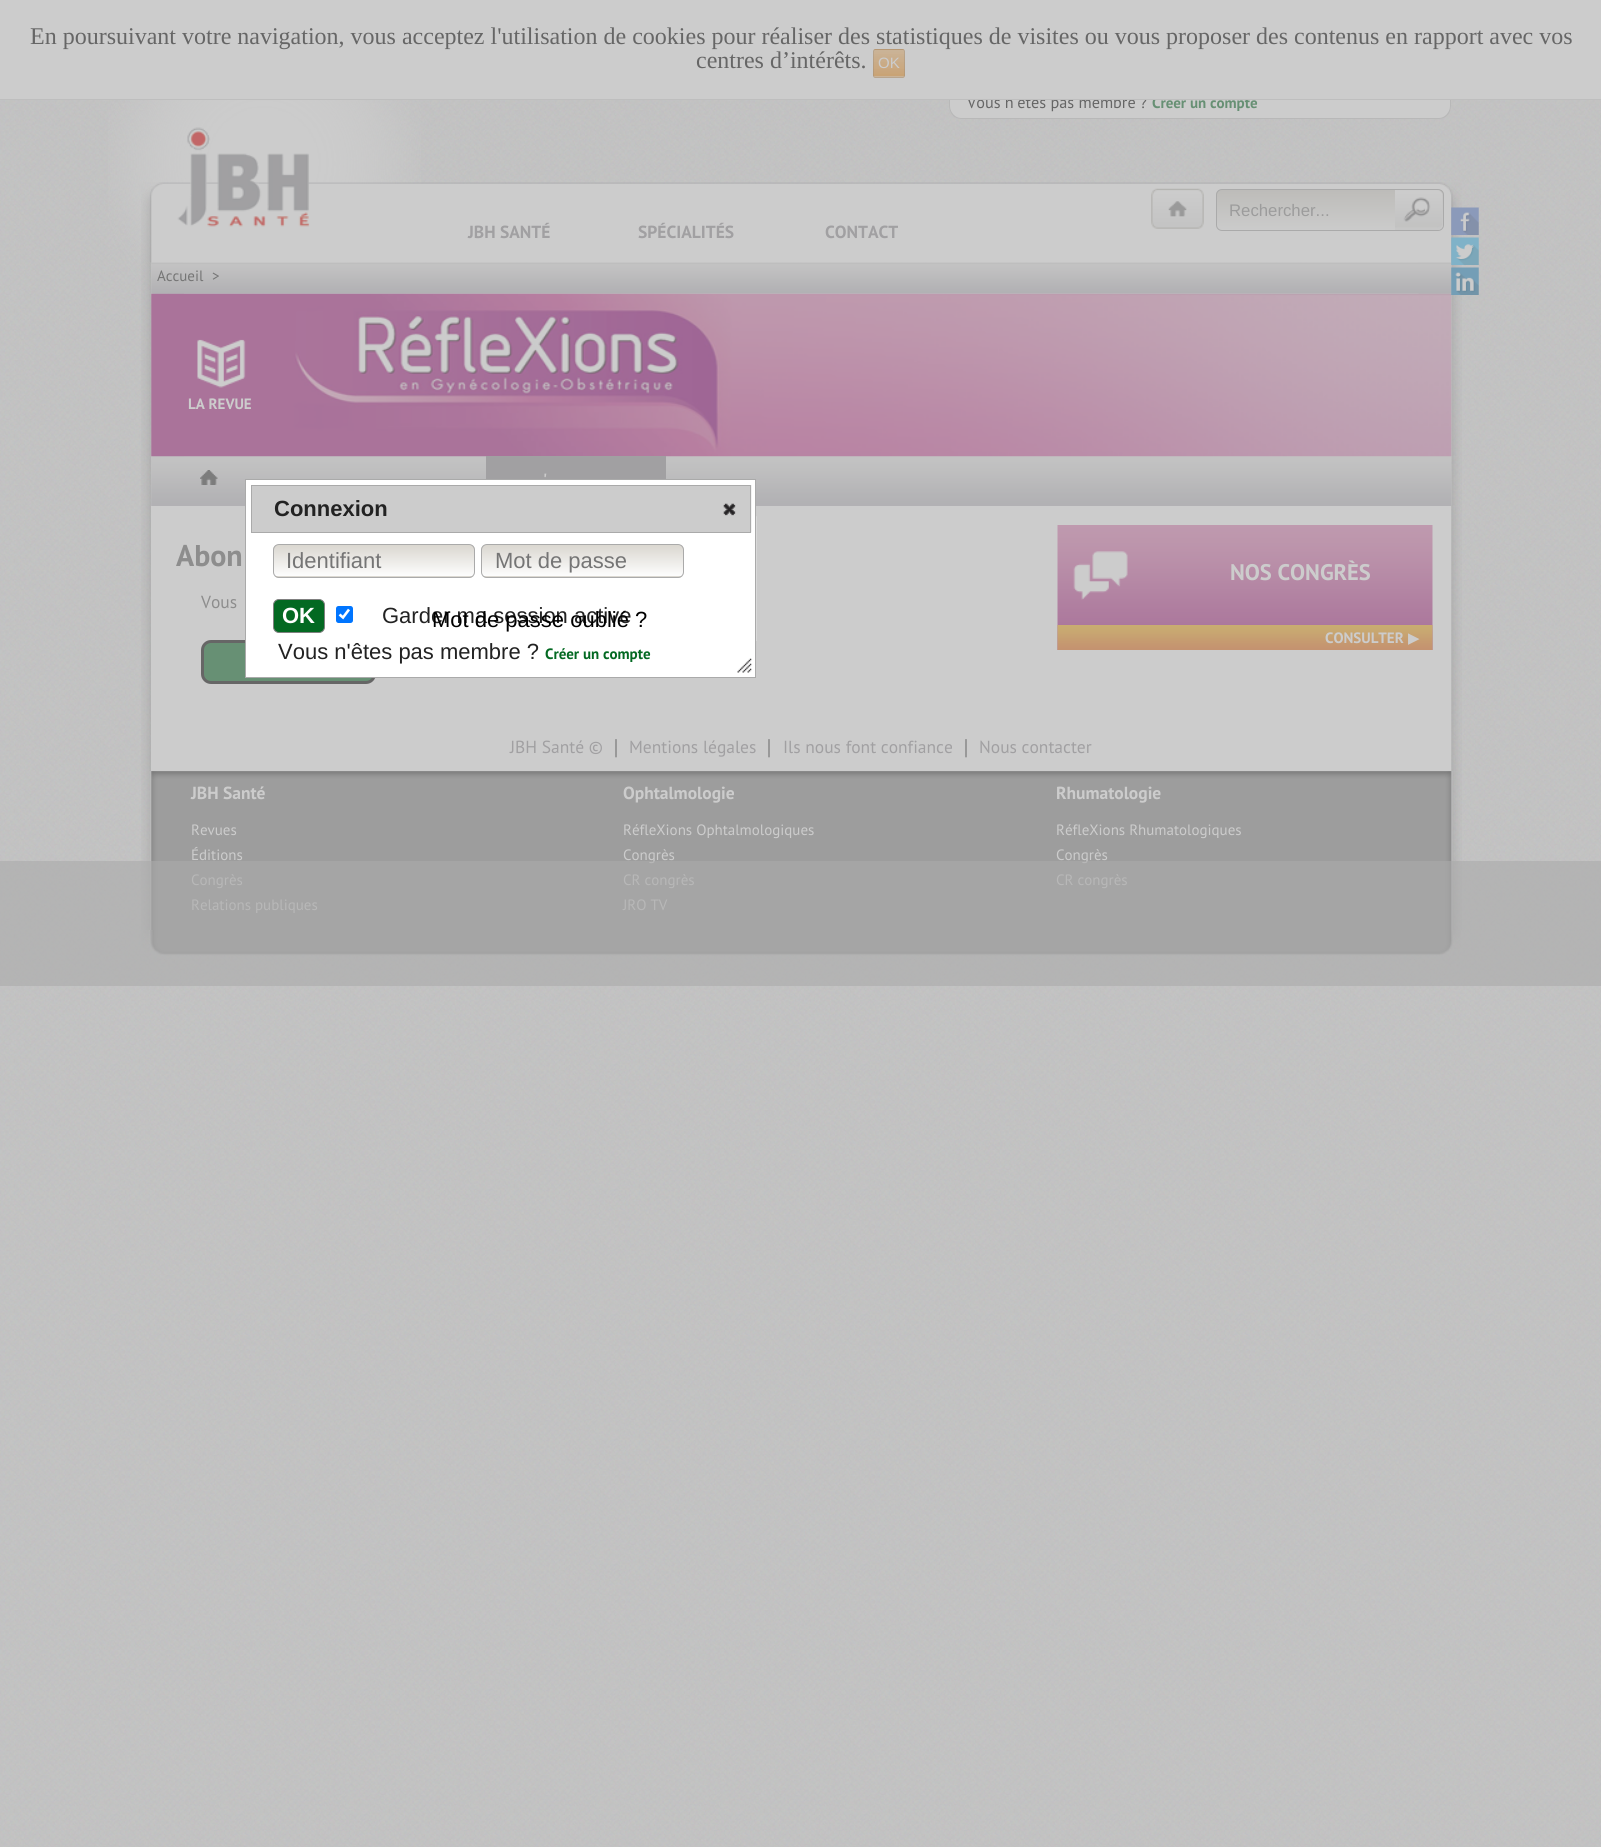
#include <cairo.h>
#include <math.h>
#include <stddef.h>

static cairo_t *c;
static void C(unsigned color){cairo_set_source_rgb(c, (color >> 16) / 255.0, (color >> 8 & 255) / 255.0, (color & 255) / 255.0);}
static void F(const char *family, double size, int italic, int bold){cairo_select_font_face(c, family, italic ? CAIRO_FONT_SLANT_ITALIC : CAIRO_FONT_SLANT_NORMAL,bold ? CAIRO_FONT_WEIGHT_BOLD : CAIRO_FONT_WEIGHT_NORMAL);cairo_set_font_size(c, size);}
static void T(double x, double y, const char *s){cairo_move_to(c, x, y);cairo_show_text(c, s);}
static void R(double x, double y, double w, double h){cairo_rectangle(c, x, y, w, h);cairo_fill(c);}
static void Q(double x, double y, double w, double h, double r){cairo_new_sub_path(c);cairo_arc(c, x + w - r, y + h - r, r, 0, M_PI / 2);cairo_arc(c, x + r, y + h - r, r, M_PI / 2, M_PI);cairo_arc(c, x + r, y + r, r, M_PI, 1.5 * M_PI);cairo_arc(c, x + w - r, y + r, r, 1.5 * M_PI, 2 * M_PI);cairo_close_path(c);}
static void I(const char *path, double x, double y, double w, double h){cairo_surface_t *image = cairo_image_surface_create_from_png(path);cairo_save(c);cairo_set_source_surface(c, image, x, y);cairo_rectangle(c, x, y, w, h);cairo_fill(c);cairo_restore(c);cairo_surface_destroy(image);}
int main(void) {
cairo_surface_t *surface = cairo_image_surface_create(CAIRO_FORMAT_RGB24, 1601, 1847);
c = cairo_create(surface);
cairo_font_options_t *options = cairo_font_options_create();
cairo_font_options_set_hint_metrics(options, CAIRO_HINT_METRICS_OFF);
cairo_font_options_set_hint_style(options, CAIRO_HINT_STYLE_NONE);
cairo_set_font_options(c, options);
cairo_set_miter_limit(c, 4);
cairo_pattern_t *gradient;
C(0xffffff);
cairo_paint(c);
I("1.png",0,100,1601,1747);
C(0xcccccc);
cairo_new_path(c);
cairo_move_to(c,949,0);
cairo_line_to(c,1451,0);
cairo_line_to(c,1451,106);
cairo_curve_to(c,1451,113,1445,119,1438,119);
cairo_line_to(c,962,119);
cairo_curve_to(c,955,119,949,113,949,106);
cairo_close_path(c);
cairo_fill(c);
C(0xb8b8b8);
cairo_set_fill_rule(c,CAIRO_FILL_RULE_EVEN_ODD);
cairo_new_path(c);
cairo_move_to(c,949,0);
cairo_line_to(c,1451,0);
cairo_line_to(c,1451,106);
cairo_curve_to(c,1451,113,1446,119,1439,119);
cairo_line_to(c,961,119);
cairo_curve_to(c,954,119,949,113,949,106);
cairo_close_path(c);
cairo_move_to(c,950,0);
cairo_line_to(c,1450,0);
cairo_line_to(c,1450,106);
cairo_curve_to(c,1450,112,1445,118,1439,118);
cairo_line_to(c,961,118);
cairo_curve_to(c,955,118,950,112,950,106);
cairo_close_path(c);
cairo_fill(c);
F("PT Sans",16.25,0,0);
C(0x666666);
T(967,108,"Vous n'êtes pas membre ?");
F("PT Sans",15,0,1);
C(0x679074);
T(1152,108,"Créer un compte");
C(0xcccccc);
R(0,0,1601,99);
C(0xbebebe);
R(0,99,1601,1);
F("Liberation Serif",24,0,0);
C(0x666666);
T(30,44,"En poursuivant votre navigation, vous acceptez l'utilisation de cookies pour réaliser des statistiques de visites ou vous proposer des contenus en rapport avec vos");
T(696,68,"centres d’intérêts.");
C(0xc9a375);
Q(873,49,32,29,2.5);
cairo_fill(c);
gradient = cairo_pattern_create_linear(874,76,874,50);
cairo_pattern_add_color_stop_rgba(gradient,0,0.8,0.8,0.8,0);
cairo_pattern_add_color_stop_rgba(gradient,1,0.8,0.8,0.8,.4);
cairo_set_source(c,gradient);
cairo_pattern_destroy(gradient);
R(873,50,32,24);
cairo_save(c);
cairo_set_fill_rule(c,CAIRO_FILL_RULE_WINDING);
Q(873,49,32,29,2.5);
cairo_clip(c);
gradient = cairo_pattern_create_linear(874,103,874,76);
cairo_pattern_add_color_stop_rgba(gradient,0,0.8,0.8,0.8,0);
cairo_pattern_add_color_stop_rgba(gradient,1,0.8,0.8,0.8,.4);
cairo_set_source(c,gradient);
cairo_pattern_destroy(gradient);
R(873,76,32,2);
cairo_restore(c);
Q(873.5,49.5,31,28,2);
cairo_set_source_rgba(c,0.431,0.431,0.431,0.2);
cairo_set_line_width(c,1);
cairo_stroke(c);
F("Liberation Sans",15,0,0);
C(0xcccccc);
T(878,68,"OK");
I("2.png",108,100,313,194);
I("10.png",141,262,1321,32);
I("11.png",151,262,1301,32);
I("3.png",141,182,1321,81);
I("4.png",177,127,133,100);
F("PT Sans",17.5,0,1);
C(0xa1a0a2);
T(468,238,"JBH SANTÉ");
T(638,238,"SPÉCIALITÉS");
T(825,238,"CONTACT");
I("5.png",1151,188,53,41);
cairo_save(c);
cairo_set_fill_rule(c,CAIRO_FILL_RULE_WINDING);
Q(1216,189,228,42,6);
cairo_clip(c);
gradient = cairo_pattern_create_linear(1330,190,1330,230);
cairo_pattern_add_color_stop_rgba(gradient,0,0.741,0.737,0.725,1);
cairo_pattern_add_color_stop_rgba(gradient,1,0.796,0.796,0.796,1);
cairo_set_source(c,gradient);
cairo_pattern_destroy(gradient);
R(1216,190,228,40);
cairo_restore(c);
Q(1216.5,189.5,227,41,5.5);
C(0xaaaaaa);
cairo_stroke(c);
F("Liberation Sans",16.75,0,0);
C(0x9c9c9c);
T(1229,216,"Rechercher...");
C(0xc6c6c6);
cairo_new_path(c);
cairo_move_to(c,1395,190);
cairo_line_to(c,1437,190);
cairo_curve_to(c,1440.5,190,1443,192.5,1443,196);
cairo_line_to(c,1443,224);
cairo_curve_to(c,1443,227.5,1440.5,230,1437,230);
cairo_line_to(c,1395,230);
cairo_close_path(c);
cairo_fill(c);
I("6.png",1395,190,47,38);
I("7.png",1451,207,28,28);
I("8.png",1451,237,28,28);
I("12.png",141,293,1321,164);
I("15.png",141,456,1321,51);
I("16.png",151,456,1301,51);
I("13.png",151,293,1301,164);
I("9.png",1451,267,28,28);
F("PT Sans",15,0,0);
C(0x757575);
T(157,281,"Accueil");
T(212,281,">");
I("14.png",197,339,49,49);
F("PT Sans",15,0,1);
C(0xcccccc);
T(188,409,"LA REVUE");
I("17.png",200,470,18,15);
C(0xa1a0a2);
R(486,456,180,23);
F("PT Sans",16.25,0,1);
C(0xcccccc);
T(543,485,"'");
I("18.png",141,506,1321,266);
R(151,506,1300,265);
F("PT Sans",30,0,1);
C(0x8d8d8d);
T(176,566,"Abon");
F("PT Sans",17.5,0,0);
T(201,608,"Vous");
C(0x679074);
Q(202.5,641.5,172,41,8.5);
cairo_fill_preserve(c);
C(0x666666);
cairo_set_line_width(c,3);
cairo_stroke(c);
I("19.png",1057,525,376,125);
I("20.png",1073,551,55,49);
F("PT Sans",22.5,0,1);
C(0xcccccc);
T(1230,580,"NOS CONGRÈS");
I("21.png",1057,625,376,25);
F("PT Sans",15,0,1);
T(1325,643,"CONSULTER");
F("DejaVu Sans",15,0,0);
T(1408,643,"▶");
F("PT Sans",17.5,0,0);
C(0xa1a0a2);
T(510,753,"JBH Santé ©");
F("Liberation Serif",20,0,0);
C(0x666666);
T(614,753,"|");
F("PT Sans",17.5,0,0);
C(0xa1a0a2);
T(629,753,"Mentions légales");
F("Liberation Serif",20,0,0);
C(0x666666);
T(767,753,"|");
F("PT Sans",17.5,0,0);
C(0xa1a0a2);
T(783,753,"Ils nous font confiance");
F("Liberation Serif",20,0,0);
C(0x666666);
T(964,753,"|");
F("PT Sans",17.5,0,0);
C(0xa1a0a2);
T(979,753,"Nous contacter");
I("22.png",141,771,1321,159);
I("23.png",151,771,1302,9);
F("PT Sans",17.5,0,1);
C(0xcccccc);
T(191,799,"JBH Santé");
F("PT Sans",15,0,0);
T(191,835,"Revues");
T(191,860,"Éditions");
T(191,885,"Congrès");
T(191,910,"Relations publiques");
F("PT Sans",17.5,0,1);
T(623,799,"Ophtalmologie");
F("PT Sans",15,0,0);
T(623,835,"RéfleXions Ophtalmologiques");
T(623,860,"Congrès");
T(623,885,"CR congrès");
T(623,910,"JRO TV");
F("PT Sans",17.5,0,1);
T(1056,799,"Rhumatologie");
F("PT Sans",15,0,0);
T(1056,835,"RéfleXions Rhumatologiques");
T(1056,860,"Congrès");
T(1056,885,"CR congrès");
I("24.png",141,930,1320,26);
C(0xffffff);
cairo_rectangle(c,245.5,479.5,510,198);
cairo_fill_preserve(c);
C(0xaaaaaa);
cairo_set_line_width(c,1);
cairo_stroke(c);
I("25.png",756,516,1,125);
C(0xcccccc);
cairo_rectangle(c,251.5,485.5,499,47);
cairo_fill_preserve(c);
C(0xaaaaaa);
cairo_stroke(c);
I("26.png",751,485,1,48);
F("Liberation Sans",22,0,1);
C(0x222222);
T(274,516,"Connexion");
I("27.png",723,503,13,13);
cairo_save(c);
cairo_set_fill_rule(c,CAIRO_FILL_RULE_WINDING);
Q(273,544,202,34,6);
cairo_clip(c);
gradient = cairo_pattern_create_linear(374,545,374,576);
cairo_pattern_add_color_stop_rgba(gradient,0,0.855,0.843,0.816,1);
cairo_pattern_add_color_stop_rgba(gradient,1,0.992,0.992,0.992,1);
cairo_set_source(c,gradient);
cairo_pattern_destroy(gradient);
R(273,545,202,31);
gradient = cairo_pattern_create_linear(374,576,374,608);
cairo_pattern_add_color_stop_rgba(gradient,0,0.855,0.843,0.816,1);
cairo_pattern_add_color_stop_rgba(gradient,1,0.992,0.992,0.992,1);
cairo_set_source(c,gradient);
cairo_pattern_destroy(gradient);
R(273,576,202,2);
cairo_restore(c);
Q(273.5,544.5,201,33,5.5);
C(0xaaaaaa);
cairo_stroke(c);
F("Liberation Sans",22,0,0);
C(0x757575);
T(286,568,"Identifiant");
cairo_save(c);
cairo_set_fill_rule(c,CAIRO_FILL_RULE_WINDING);
Q(481,544,203,34,6);
cairo_clip(c);
gradient = cairo_pattern_create_linear(583,545,583,576);
cairo_pattern_add_color_stop_rgba(gradient,0,0.855,0.843,0.816,1);
cairo_pattern_add_color_stop_rgba(gradient,1,0.992,0.992,0.992,1);
cairo_set_source(c,gradient);
cairo_pattern_destroy(gradient);
R(481,545,203,31);
gradient = cairo_pattern_create_linear(583,576,583,608);
cairo_pattern_add_color_stop_rgba(gradient,0,0.855,0.843,0.816,1);
cairo_pattern_add_color_stop_rgba(gradient,1,0.992,0.992,0.992,1);
cairo_set_source(c,gradient);
cairo_pattern_destroy(gradient);
R(481,576,203,2);
cairo_restore(c);
Q(481.5,544.5,202,33,5.5);
C(0xaaaaaa);
cairo_stroke(c);
C(0x757575);
T(495,568,"Mot de passe");
C(0x036922);
Q(273.5,599.5,51,33,5.5);
cairo_fill_preserve(c);
C(0x808080);
cairo_stroke(c);
F("Liberation Sans",22,0,1);
C(0xffffff);
T(282,623,"OK");
C(0x0075ff);
Q(336,606,17,17,2.5);
cairo_fill(c);
cairo_new_path(c);
cairo_move_to(c,339.5,614.5);
cairo_line_to(c,343,617.5);
cairo_line_to(c,349,609.5);
C(0xffffff);
cairo_set_line_width(c,2.6);
cairo_stroke(c);
F("Liberation Sans",22,0,0);
C(0x222222);
T(382,623,"Garder ma session active");
C(0x000000);
T(432,627,"Mot de passe oublié ?");
C(0x222222);
T(278,659,"Vous n'êtes pas membre ?");
F("PT Sans",15,0,1);
C(0x036922);
T(545,659,"Créer un compte");
I("28.png",737,658,15,15);
cairo_set_source_rgba(c,0.667,0.667,0.667,0.6);
R(0,861,1601,125);
cairo_surface_write_to_png(surface, "o.png");
cairo_font_options_destroy(options);
cairo_destroy(c);
cairo_surface_destroy(surface);
return 0;
}
